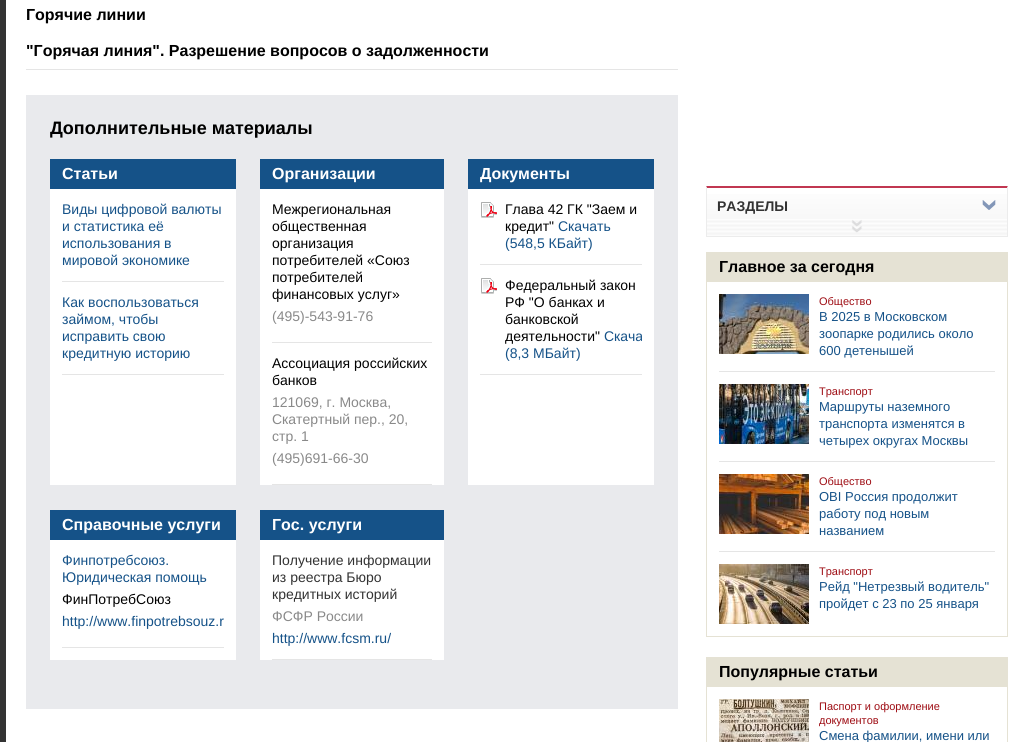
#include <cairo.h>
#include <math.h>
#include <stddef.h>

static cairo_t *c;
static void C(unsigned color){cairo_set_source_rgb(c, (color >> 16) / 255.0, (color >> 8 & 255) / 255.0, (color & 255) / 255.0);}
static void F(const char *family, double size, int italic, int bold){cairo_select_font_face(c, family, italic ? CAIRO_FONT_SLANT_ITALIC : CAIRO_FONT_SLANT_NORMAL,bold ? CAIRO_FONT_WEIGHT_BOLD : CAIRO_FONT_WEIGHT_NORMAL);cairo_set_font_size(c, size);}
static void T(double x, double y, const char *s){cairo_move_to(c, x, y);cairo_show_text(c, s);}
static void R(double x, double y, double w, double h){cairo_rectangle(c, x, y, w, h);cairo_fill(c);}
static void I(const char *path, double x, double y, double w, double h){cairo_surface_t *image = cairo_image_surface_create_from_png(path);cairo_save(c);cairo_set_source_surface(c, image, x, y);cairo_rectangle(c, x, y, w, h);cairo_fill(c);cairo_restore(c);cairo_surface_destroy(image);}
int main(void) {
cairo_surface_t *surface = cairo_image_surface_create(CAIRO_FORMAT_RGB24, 1026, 742);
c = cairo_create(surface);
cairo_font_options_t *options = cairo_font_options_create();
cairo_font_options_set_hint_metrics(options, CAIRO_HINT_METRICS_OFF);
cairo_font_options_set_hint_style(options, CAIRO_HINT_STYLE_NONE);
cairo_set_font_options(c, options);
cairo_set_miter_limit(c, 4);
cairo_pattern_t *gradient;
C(0xffffff);
cairo_paint(c);
C(0x333333);
R(0,0,6,742);
F("Liberation Sans",16,0,1);
C(0x000000);
T(26,20,"Горячие линии");
C(0xe5e5e5);
R(26,69,652,1);
C(0x000000);
T(26,56,"\"Горячая линия\". Разрешение вопросов о задолженности");
C(0xe9eaed);
R(26,95,652,614);
F("Liberation Sans",18,0,1);
C(0x000000);
T(50,134,"Дополнительные материалы");
C(0xffffff);
R(50,189,186,296);
C(0x155288);
R(50,159,186,30);
F("Liberation Sans",16,0,1);
C(0xffffff);
T(62,179,"Статьи");
C(0xe5e5e5);
R(62,281,162,1);
F("Liberation Sans",14,0,0);
C(0x155288);
T(62,214,"Виды цифровой валюты");
T(62,231,"и статистика её");
T(62,248,"использования в");
T(62,265,"мировой экономике");
C(0xe5e5e5);
R(62,374,162,1);
C(0x155288);
T(62,307,"Как воспользоваться");
T(62,324,"займом, чтобы");
T(62,341,"исправить свою");
T(62,358,"кредитную историю");
C(0xffffff);
R(260,189,184,296);
C(0x155288);
R(260,159,184,30);
F("Liberation Sans",16,0,1);
C(0xffffff);
T(272,179,"Организации");
C(0xe5e5e5);
R(272,342,160,1);
F("Liberation Sans",14,0,0);
C(0x000000);
T(272,214,"Межрегиональная");
T(272,231,"общественная");
T(272,248,"организация");
T(272,265,"потребителей «Союз");
T(272,282,"потребителей");
T(272,299,"финансовых услуг»");
C(0x898989);
T(272,321,"(495)-543-91-76");
C(0xe5e5e5);
R(272,484,160,1);
C(0x000000);
T(272,368,"Ассоциация российских");
T(272,385,"банков");
C(0x898989);
T(272,407,"121069, г. Москва,");
T(272,424,"Скатертный пер., 20,");
T(272,441,"стр. 1");
T(272,463,"(495)691-66-30");
C(0xffffff);
R(468,189,186,296);
C(0x155288);
R(468,159,186,30);
F("Liberation Sans",16,0,1);
C(0xffffff);
T(480,179,"Документы");
C(0xe5e5e5);
R(480,264,162,1);
I("1.png",481,202,16,16);
F("Liberation Sans",14,0,0);
C(0x000000);
T(505,214,"Глава 42 ГК \"Заем и");
T(505,231,"кредит\"");
C(0x155288);
T(558,231,"Скачать");
T(505,248,"(548,5 КБайт)");
C(0xe5e5e5);
R(480,374,162,1);
I("1.png",481,278,16,16);
C(0x000000);
T(505,290,"Федеральный закон");
T(505,307,"РФ \"О банках и");
T(505,324,"банковской");
T(505,341,"деятельности\"");
cairo_save(c);
cairo_rectangle(c,480,277,162,85);
cairo_clip(c);
C(0x155288);
T(604,341,"Скача");
cairo_restore(c);
C(0x155288);
T(505,358,"(8,3 МБайт)");
C(0xffffff);
R(50,540,186,120);
C(0x155288);
R(50,510,186,30);
F("Liberation Sans",16,0,1);
C(0xffffff);
T(62,530,"Справочные услуги");
C(0xe5e5e5);
R(62,647,162,1);
F("Liberation Sans",14,0,0);
C(0x155288);
T(62,565,"Финпотребсоюз.");
T(62,582,"Юридическая помощь");
C(0x000000);
T(62,604,"ФинПотребСоюз");
C(0x155288);
T(62,626,"http://www.finpotrebsouz.r");
C(0xffffff);
R(260,540,184,120);
C(0x155288);
R(260,510,184,30);
F("Liberation Sans",16,0,1);
C(0xffffff);
T(272,530,"Гос. услуги");
C(0xe5e5e5);
R(272,659,160,1);
F("Liberation Sans",14,0,0);
C(0x333333);
T(272,565,"Получение информации");
T(272,582,"из реестра Бюро");
T(272,599,"кредитных историй");
C(0x898989);
T(272,621,"ФСФР России");
C(0x155288);
T(272,643,"http://www.fcsm.ru/");
gradient = cairo_pattern_create_linear(707,188,707,236);
cairo_pattern_add_color_stop_rgba(gradient,0,0.992,0.992,0.992,1);
cairo_pattern_add_color_stop_rgba(gradient,.07,0.992,0.992,0.992,1);
cairo_pattern_add_color_stop_rgba(gradient,.9,0.961,0.961,0.961,1);
cairo_set_source(c,gradient);
cairo_pattern_destroy(gradient);
R(707,194,300,42);
C(0xc13751);
cairo_new_path(c);
cairo_move_to(c,706,186);
cairo_line_to(c,1008,186);
cairo_line_to(c,1007,188);
cairo_line_to(c,707,188);
cairo_close_path(c);
cairo_fill(c);
C(0xececec);
cairo_new_path(c);
cairo_move_to(c,1008,186);
cairo_line_to(c,1008,237);
cairo_line_to(c,1007,236);
cairo_line_to(c,1007,188);
cairo_close_path(c);
cairo_fill(c);
R(706,236,302,1);
cairo_new_path(c);
cairo_move_to(c,706,237);
cairo_line_to(c,706,186);
cairo_line_to(c,707,188);
cairo_line_to(c,707,236);
cairo_close_path(c);
cairo_fill(c);
F("Liberation Sans",14,0,1);
C(0x333333);
T(717,211,"РАЗДЕЛЫ");
I("2.png",982,200,14,10);
I("3.png",707,219,300,17);
C(0xe5e2d4);
R(1007,252,1,385);
R(706,636,302,1);
R(706,252,1,385);
R(707,252,300,30);
F("Liberation Sans",16,0,1);
C(0x000000);
T(719,272,"Главное за сегодня");
C(0xe5e5e5);
R(719,371,276,1);
I("4.png",719,294,90,60);
F("Liberation Sans",11,0,0);
C(0x9e0d14);
T(819,305,"Общество");
F("Liberation Sans",13,0,0);
C(0x155288);
T(819,321,"В 2025 в Московском");
T(819,338,"зоопарке родились около");
T(819,355,"600 детенышей");
C(0xe5e5e5);
R(719,461,276,1);
I("5.png",719,384,90,60);
F("Liberation Sans",11,0,0);
C(0x9e0d14);
T(819,395,"Транспорт");
F("Liberation Sans",13,0,0);
C(0x155288);
T(819,411,"Маршруты наземного");
T(819,428,"транспорта изменятся в");
T(819,445,"четырех округах Москвы");
C(0xe5e5e5);
R(719,551,276,1);
I("6.png",719,474,90,60);
F("Liberation Sans",11,0,0);
C(0x9e0d14);
T(819,485,"Общество");
F("Liberation Sans",13,0,0);
C(0x155288);
T(819,501,"OBI Россия продолжит");
T(819,518,"работу под новым");
T(819,535,"названием");
I("7.png",719,564,90,60);
F("Liberation Sans",11,0,0);
C(0x9e0d14);
T(819,575,"Транспорт");
F("Liberation Sans",13,0,0);
C(0x155288);
T(819,591,"Рейд \"Нетрезвый водитель\"");
T(819,608,"пройдет с 23 по 25 января");
C(0xe5e2d4);
R(1007,657,1,85);
R(706,657,1,85);
R(707,657,300,30);
F("Liberation Sans",16,0,1);
C(0x000000);
T(719,677,"Популярные статьи");
I("8.png",719,699,90,43);
F("Liberation Sans",11,0,0);
C(0x9e0d14);
T(819,710,"Паспорт и оформление");
T(819,724,"документов");
F("Liberation Sans",13,0,0);
C(0x155288);
T(819,740,"Смена фамилии, имени или");
cairo_surface_write_to_png(surface, "o.png");
cairo_font_options_destroy(options);
cairo_destroy(c);
cairo_surface_destroy(surface);
return 0;
}
